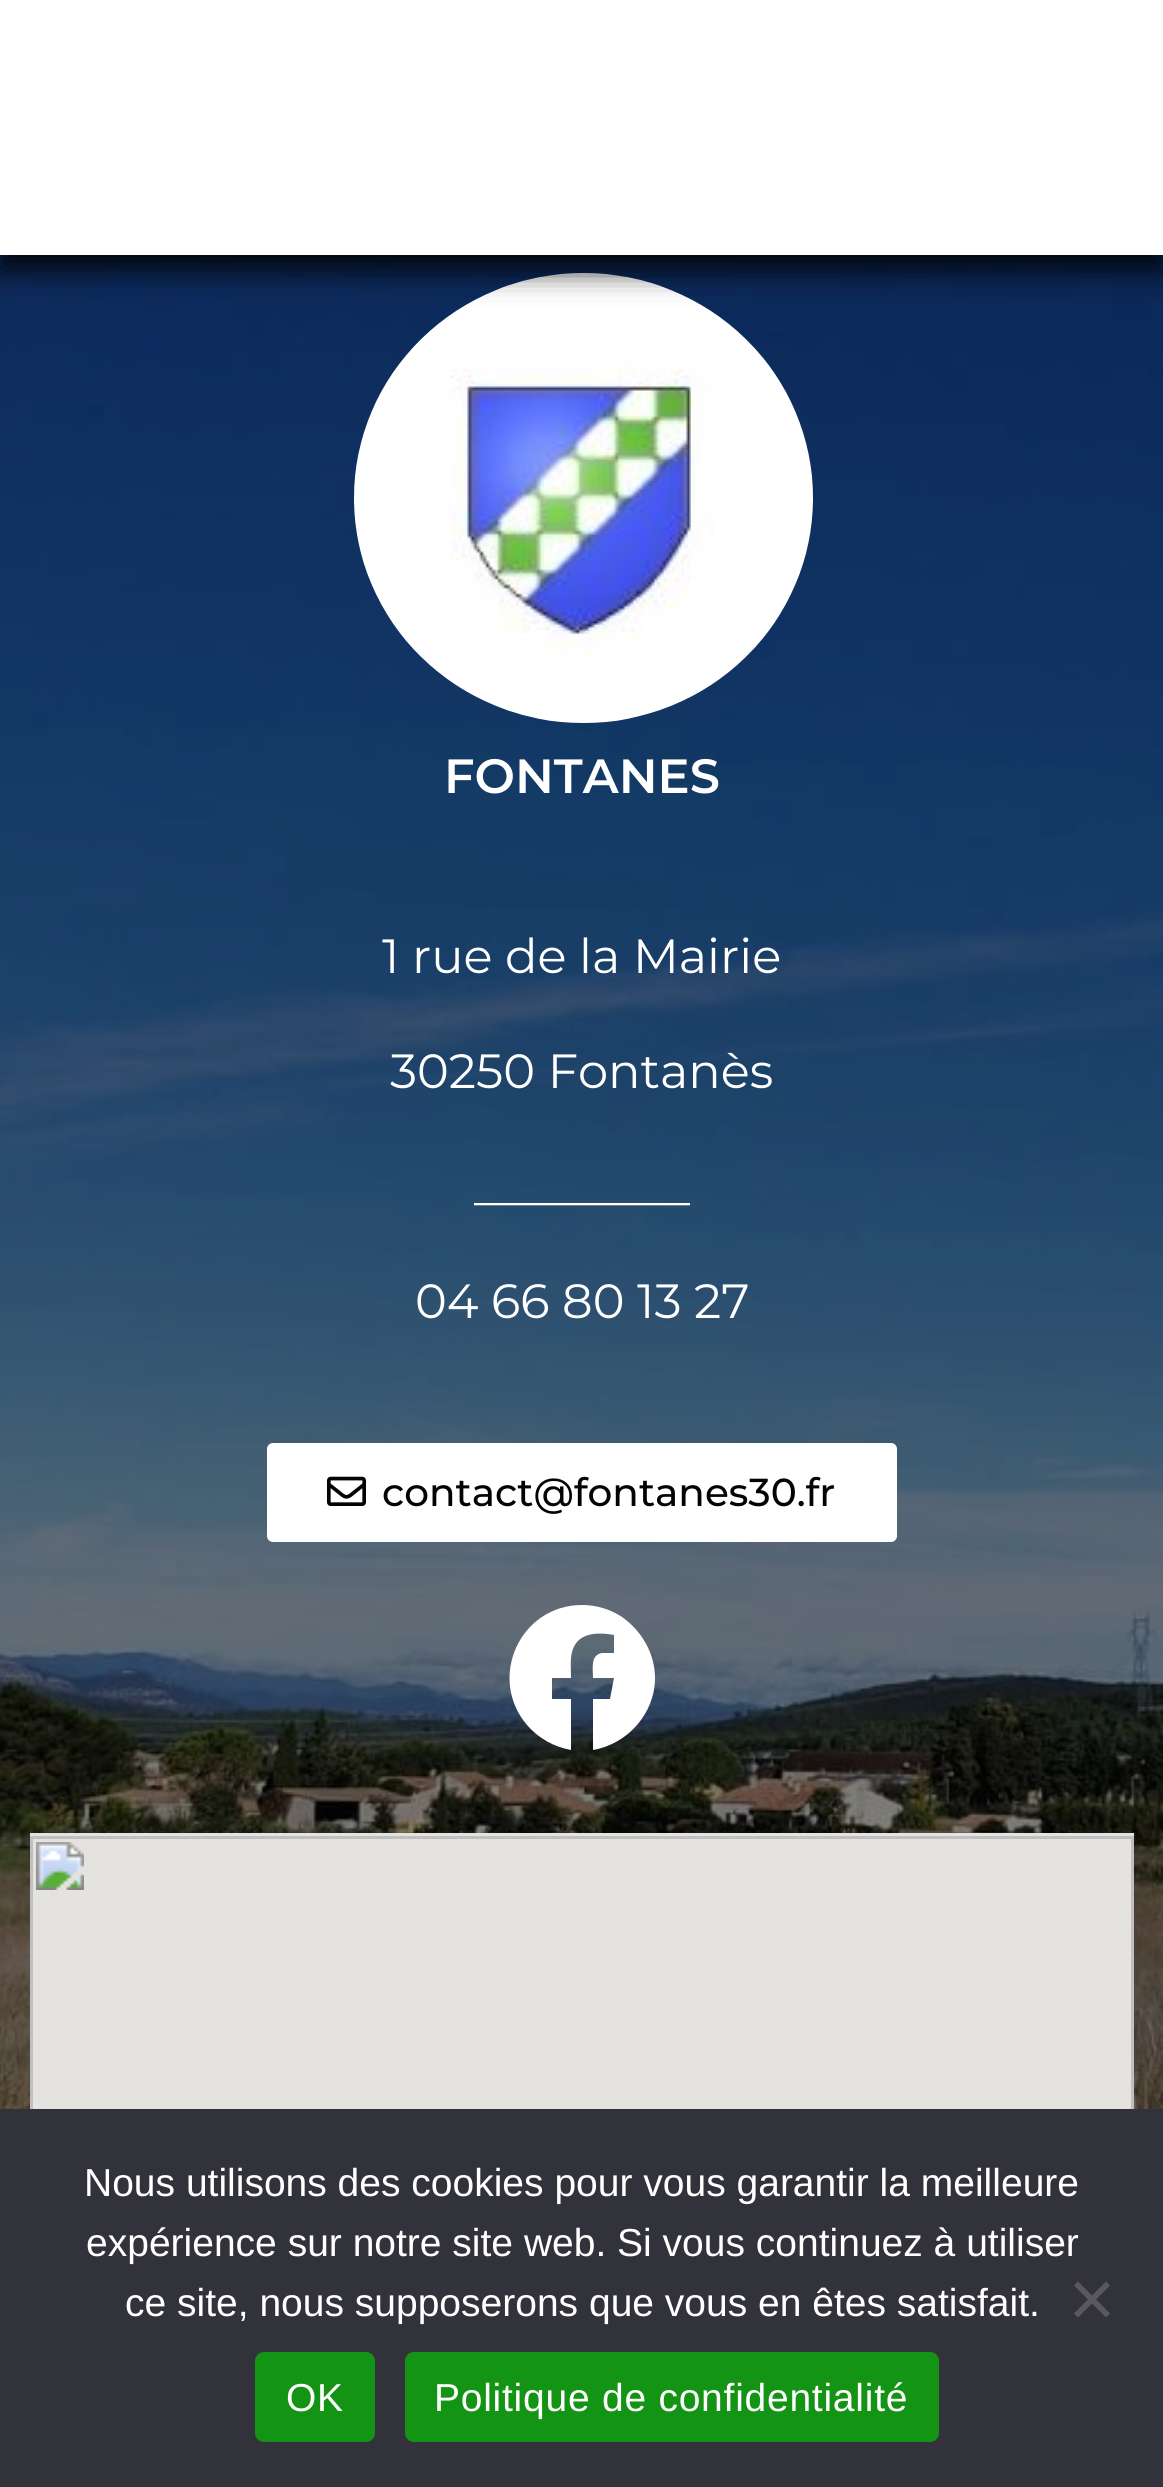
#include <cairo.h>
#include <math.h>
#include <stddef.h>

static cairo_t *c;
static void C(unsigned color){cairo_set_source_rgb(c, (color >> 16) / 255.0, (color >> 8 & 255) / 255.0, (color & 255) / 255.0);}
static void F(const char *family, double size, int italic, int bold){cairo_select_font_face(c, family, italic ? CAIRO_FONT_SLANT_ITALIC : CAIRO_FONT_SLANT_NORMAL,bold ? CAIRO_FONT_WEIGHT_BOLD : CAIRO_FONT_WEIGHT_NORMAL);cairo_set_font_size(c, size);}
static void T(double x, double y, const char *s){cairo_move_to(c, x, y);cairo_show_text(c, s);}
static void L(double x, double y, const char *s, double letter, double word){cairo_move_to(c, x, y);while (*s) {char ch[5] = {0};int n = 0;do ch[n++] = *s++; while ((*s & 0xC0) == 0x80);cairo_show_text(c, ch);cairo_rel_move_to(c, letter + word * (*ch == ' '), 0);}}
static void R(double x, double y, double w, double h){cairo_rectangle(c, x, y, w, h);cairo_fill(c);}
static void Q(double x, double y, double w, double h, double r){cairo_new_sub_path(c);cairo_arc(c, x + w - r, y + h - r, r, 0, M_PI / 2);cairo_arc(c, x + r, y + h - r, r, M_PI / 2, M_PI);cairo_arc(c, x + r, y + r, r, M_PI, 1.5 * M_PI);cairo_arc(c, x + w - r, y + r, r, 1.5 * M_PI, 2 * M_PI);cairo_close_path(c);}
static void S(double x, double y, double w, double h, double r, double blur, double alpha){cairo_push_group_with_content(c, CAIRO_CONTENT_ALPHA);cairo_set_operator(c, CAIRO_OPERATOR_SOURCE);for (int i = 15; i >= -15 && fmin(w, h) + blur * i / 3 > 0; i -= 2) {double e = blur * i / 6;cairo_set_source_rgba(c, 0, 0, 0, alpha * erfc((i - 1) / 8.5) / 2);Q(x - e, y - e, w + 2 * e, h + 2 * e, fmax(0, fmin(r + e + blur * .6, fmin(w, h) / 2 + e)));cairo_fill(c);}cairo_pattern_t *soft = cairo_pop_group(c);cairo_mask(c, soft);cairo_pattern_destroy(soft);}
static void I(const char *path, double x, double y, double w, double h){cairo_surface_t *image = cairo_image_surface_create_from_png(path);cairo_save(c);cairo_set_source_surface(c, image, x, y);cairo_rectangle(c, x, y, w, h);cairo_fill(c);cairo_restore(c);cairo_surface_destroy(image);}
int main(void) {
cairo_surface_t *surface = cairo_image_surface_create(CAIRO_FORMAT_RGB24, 1163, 2487);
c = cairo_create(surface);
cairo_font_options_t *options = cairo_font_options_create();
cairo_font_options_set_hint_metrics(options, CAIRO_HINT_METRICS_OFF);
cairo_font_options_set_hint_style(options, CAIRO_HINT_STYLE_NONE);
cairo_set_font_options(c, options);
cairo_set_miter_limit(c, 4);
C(0xffffff);
cairo_paint(c);
I("1.png",0,255,1163,1854);
I("2.png",354,273,459,450);
C(0x000000);
S(0,15,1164,255,0,15,.89);
C(0xffffff);
R(0,0,1163,255);
F("Montserrat SemiBold",48,0,0);
T(444,793,"FONTANES");
F("Montserrat",48,0,0);
T(382,973,"1 rue de la Mairie");
T(390,1088,"30250 Fontanès");
T(474,1203,"_________");
T(415,1318,"04 66 80 13 27");
Q(267,1443,630,99,6);
cairo_fill(c);
I("3.png",327,1476,39,30);
F("Montserrat Medium",39,0,0);
C(0x050202);
T(382,1506,"contact@fontanes30.fr");
C(0xffffff);
cairo_new_path(c);
cairo_move_to(c,655,1678);
cairo_curve_to(c,655,1713,628,1744,593,1750);
cairo_line_to(c,593,1699);
cairo_line_to(c,610,1699);
cairo_line_to(c,614,1678);
cairo_line_to(c,593,1678);
cairo_curve_to(c,593,1669,590,1655,602,1653);
cairo_line_to(c,614,1653);
cairo_line_to(c,614,1635);
cairo_curve_to(c,598,1632,577,1632,572,1652);
cairo_curve_to(c,570,1660,571,1669,571,1678);
cairo_line_to(c,552,1678);
cairo_line_to(c,552,1699);
cairo_line_to(c,571,1699);
cairo_line_to(c,571,1750);
cairo_curve_to(c,554,1747,538,1738,527,1725);
cairo_curve_to(c,487,1678,520,1605,582,1605);
cairo_curve_to(c,596,1605,610,1609,622,1617);
cairo_curve_to(c,642,1631,655,1654,655,1678);
cairo_close_path(c);
cairo_fill(c);
I("4.png",30,1833,1104,276);
C(0x32323a);
R(0,2109,1163,378);
F("Liberation Sans",39,0,0);
C(0xffffff);
T(84,2196,"Nous utilisons des cookies pour vous garantir la meilleure");
T(86,2256,"expérience sur notre site web. Si vous continuez à utiliser");
T(125,2316,"ce site, nous supposerons que vous en êtes satisfait.");
C(0x59595d);
cairo_new_path(c);
cairo_move_to(c,1106,2281.5);
cairo_line_to(c,1110,2285.5);
cairo_line_to(c,1078,2317.5);
cairo_line_to(c,1074,2313.5);
cairo_close_path(c);
cairo_fill(c);
cairo_new_path(c);
cairo_move_to(c,1074,2285.5);
cairo_line_to(c,1078,2281.5);
cairo_line_to(c,1110,2313.5);
cairo_line_to(c,1106,2317.5);
cairo_close_path(c);
cairo_fill(c);
C(0x149414);
Q(255,2352,120,90,9);
cairo_fill(c);
C(0xffffff);
L(286,2411,"OK",.75,0);
C(0x149414);
Q(405,2352,534,90,9);
cairo_fill(c);
C(0xffffff);
L(434,2411,"Politique de confidentialité",.75,0);
cairo_surface_write_to_png(surface, "o.png");
cairo_font_options_destroy(options);
cairo_destroy(c);
cairo_surface_destroy(surface);
return 0;
}
